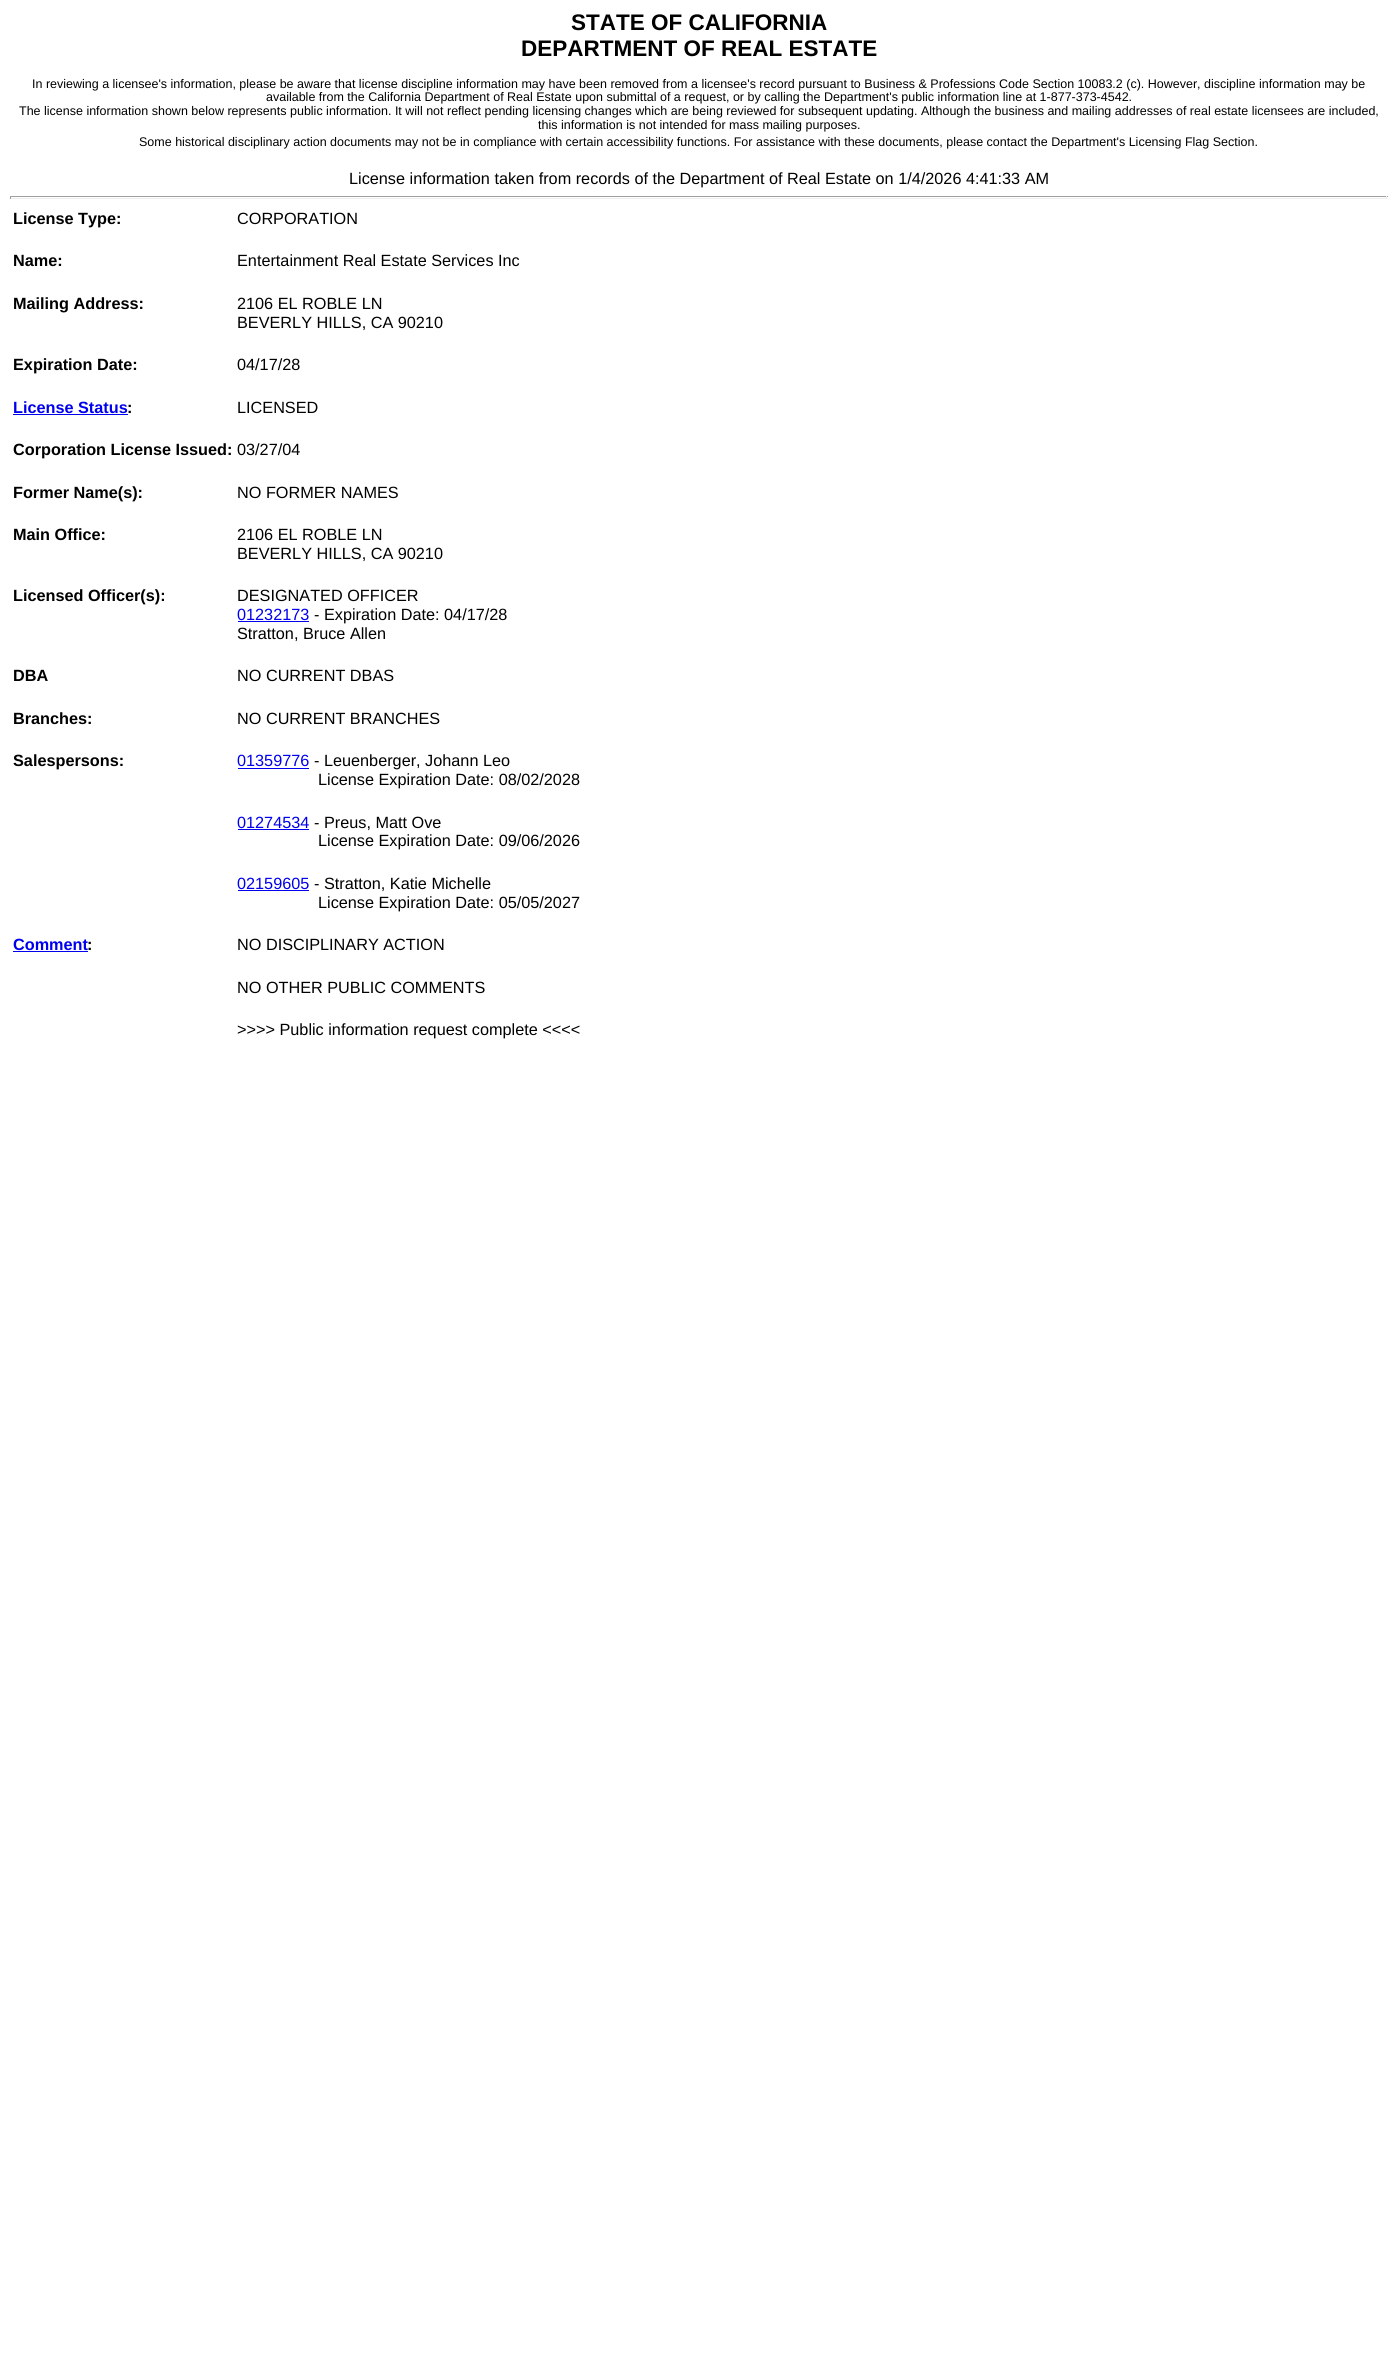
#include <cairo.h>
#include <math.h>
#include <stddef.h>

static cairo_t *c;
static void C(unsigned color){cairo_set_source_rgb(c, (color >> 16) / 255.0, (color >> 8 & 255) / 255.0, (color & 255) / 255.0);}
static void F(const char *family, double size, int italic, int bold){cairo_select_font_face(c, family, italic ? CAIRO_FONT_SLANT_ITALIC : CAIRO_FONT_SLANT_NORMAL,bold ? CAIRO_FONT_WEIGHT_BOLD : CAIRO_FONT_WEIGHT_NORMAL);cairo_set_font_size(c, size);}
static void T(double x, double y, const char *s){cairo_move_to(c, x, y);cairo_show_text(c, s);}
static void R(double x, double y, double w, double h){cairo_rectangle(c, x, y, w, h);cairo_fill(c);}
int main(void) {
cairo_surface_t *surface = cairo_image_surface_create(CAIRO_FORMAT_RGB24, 1397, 2376);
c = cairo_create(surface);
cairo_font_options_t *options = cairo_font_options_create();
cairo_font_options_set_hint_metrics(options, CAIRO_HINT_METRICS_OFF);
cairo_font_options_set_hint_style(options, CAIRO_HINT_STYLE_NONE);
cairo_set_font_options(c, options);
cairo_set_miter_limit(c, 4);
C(0xffffff);
cairo_paint(c);
F("Liberation Sans",22.5,0,1);
C(0x000000);
T(571,30,"STATE OF CALIFORNIA");
T(521,56,"DEPARTMENT OF REAL ESTATE");
F("Liberation Sans",12.5,0,0);
T(32,88,"In reviewing a licensee's information, please be aware that license discipline information may have been removed from a licensee's record pursuant to Business & Professions Code Section 10083.2 (c). However, discipline information may be");
T(266,101,"available from the California Department of Real Estate upon submittal of a request, or by calling the Department's public information line at 1-877-373-4542.");
T(19,115,"The license information shown below represents public information. It will not reflect pending licensing changes which are being reviewed for subsequent updating. Although the business and mailing addresses of real estate licensees are included,");
T(538,129,"this information is not intended for mass mailing purposes.");
T(139,146,"Some historical disciplinary action documents may not be in compliance with certain accessibility functions. For assistance with these documents, please contact the Department's Licensing Flag Section.");
F("Liberation Sans",16.25,0,0);
T(349,184,"License information taken from records of the Department of Real Estate on 1/4/2026 4:41:33 AM");
C(0x9f9f9f);
R(10,196,1378,1);
C(0xeeeeee);
R(1386,196,1,3);
R(10,198,1378,1);
C(0x9f9f9f);
R(10,196,1,3);
F("Liberation Sans",16.25,0,1);
C(0x000000);
T(13,224,"License Type:");
F("Liberation Sans",16.25,0,0);
T(237,224,"CORPORATION");
F("Liberation Sans",16.25,0,1);
T(13,266,"Name:");
F("Liberation Sans",16.25,0,0);
T(237,266,"Entertainment Real Estate Services Inc");
F("Liberation Sans",16.25,0,1);
T(13,309,"Mailing Address:");
F("Liberation Sans",16.25,0,0);
T(237,309,"2106 EL ROBLE LN");
T(237,328,"BEVERLY HILLS, CA 90210");
F("Liberation Sans",16.25,0,1);
T(13,370,"Expiration Date:");
F("Liberation Sans",16.25,0,0);
T(237,370,"04/17/28");
F("Liberation Sans",16.25,0,1);
C(0x0000ee);
T(13,413,"License Status");
C(0x000000);
T(127,413,":");
C(0x0000ee);
R(13,414,115,1);
F("Liberation Sans",16.25,0,0);
C(0x000000);
T(237,413,"LICENSED");
F("Liberation Sans",16.25,0,1);
T(13,455,"Corporation License Issued:");
F("Liberation Sans",16.25,0,0);
T(237,455,"03/27/04");
F("Liberation Sans",16.25,0,1);
T(13,498,"Former Name(s):");
F("Liberation Sans",16.25,0,0);
T(237,498,"NO FORMER NAMES");
F("Liberation Sans",16.25,0,1);
T(13,540,"Main Office:");
F("Liberation Sans",16.25,0,0);
T(237,540,"2106 EL ROBLE LN");
T(237,559,"BEVERLY HILLS, CA 90210");
F("Liberation Sans",16.25,0,1);
T(13,601,"Licensed Officer(s):");
F("Liberation Sans",16.25,0,0);
T(237,601,"DESIGNATED OFFICER");
C(0x0000ee);
T(237,620,"01232173");
R(238,621,71,1);
C(0x000000);
T(314,620,"- Expiration Date: 04/17/28");
T(237,639,"Stratton, Bruce Allen");
F("Liberation Sans",16.25,0,1);
T(13,681,"DBA");
F("Liberation Sans",16.25,0,0);
T(237,681,"NO CURRENT DBAS");
F("Liberation Sans",16.25,0,1);
T(13,724,"Branches:");
F("Liberation Sans",16.25,0,0);
T(237,724,"NO CURRENT BRANCHES");
F("Liberation Sans",16.25,0,1);
T(13,766,"Salespersons:");
F("Liberation Sans",16.25,0,0);
C(0x0000ee);
T(237,766,"01359776");
R(238,768,71,1);
C(0x000000);
T(314,766,"- Leuenberger, Johann Leo");
T(318,785,"License Expiration Date: 08/02/2028");
C(0x0000ee);
T(237,828,"01274534");
R(238,829,71,1);
C(0x000000);
T(314,828,"- Preus, Matt Ove");
T(318,846,"License Expiration Date: 09/06/2026");
C(0x0000ee);
T(237,889,"02159605");
R(238,890,71,1);
C(0x000000);
T(314,889,"- Stratton, Katie Michelle");
T(318,908,"License Expiration Date: 05/05/2027");
F("Liberation Sans",16.25,0,1);
C(0x0000ee);
T(13,950,"Comment");
C(0x000000);
T(87,950,":");
C(0x0000ee);
R(13,951,75,1);
F("Liberation Sans",16.25,0,0);
C(0x000000);
T(237,950,"NO DISCIPLINARY ACTION");
T(237,993,"NO OTHER PUBLIC COMMENTS");
T(237,1035,">>>> Public information request complete <<<<");
cairo_surface_write_to_png(surface, "o.png");
cairo_font_options_destroy(options);
cairo_destroy(c);
cairo_surface_destroy(surface);
return 0;
}
